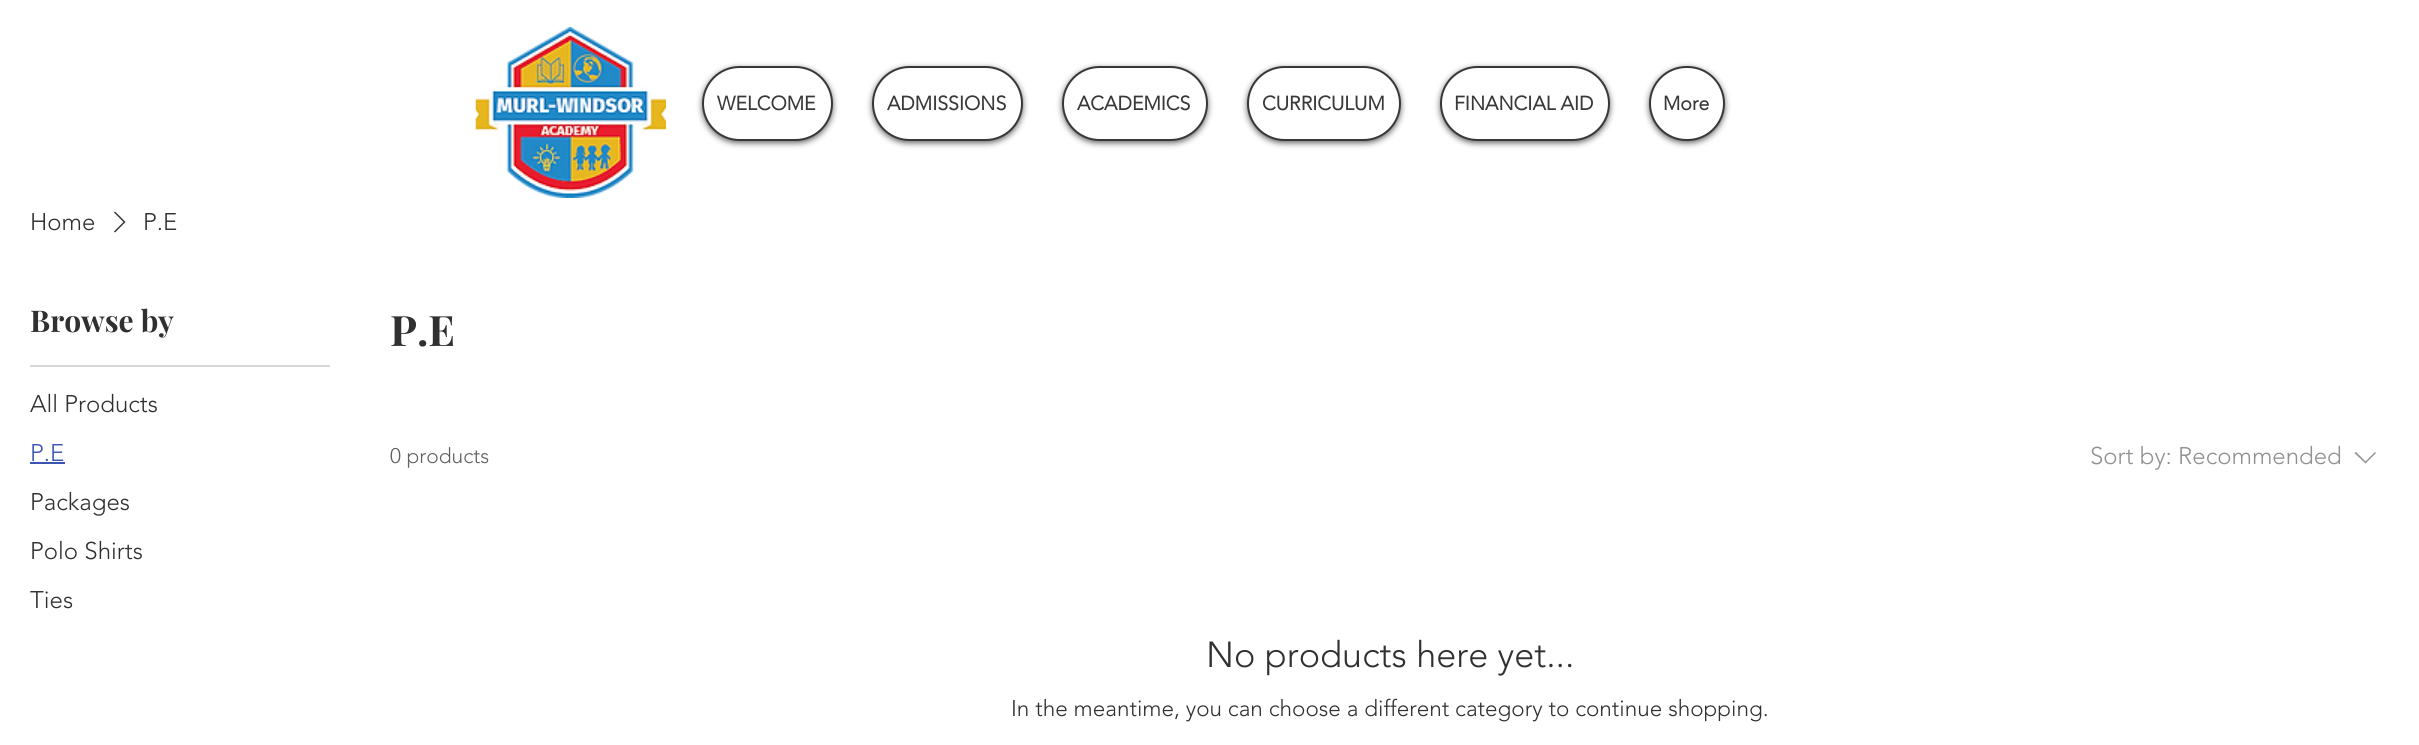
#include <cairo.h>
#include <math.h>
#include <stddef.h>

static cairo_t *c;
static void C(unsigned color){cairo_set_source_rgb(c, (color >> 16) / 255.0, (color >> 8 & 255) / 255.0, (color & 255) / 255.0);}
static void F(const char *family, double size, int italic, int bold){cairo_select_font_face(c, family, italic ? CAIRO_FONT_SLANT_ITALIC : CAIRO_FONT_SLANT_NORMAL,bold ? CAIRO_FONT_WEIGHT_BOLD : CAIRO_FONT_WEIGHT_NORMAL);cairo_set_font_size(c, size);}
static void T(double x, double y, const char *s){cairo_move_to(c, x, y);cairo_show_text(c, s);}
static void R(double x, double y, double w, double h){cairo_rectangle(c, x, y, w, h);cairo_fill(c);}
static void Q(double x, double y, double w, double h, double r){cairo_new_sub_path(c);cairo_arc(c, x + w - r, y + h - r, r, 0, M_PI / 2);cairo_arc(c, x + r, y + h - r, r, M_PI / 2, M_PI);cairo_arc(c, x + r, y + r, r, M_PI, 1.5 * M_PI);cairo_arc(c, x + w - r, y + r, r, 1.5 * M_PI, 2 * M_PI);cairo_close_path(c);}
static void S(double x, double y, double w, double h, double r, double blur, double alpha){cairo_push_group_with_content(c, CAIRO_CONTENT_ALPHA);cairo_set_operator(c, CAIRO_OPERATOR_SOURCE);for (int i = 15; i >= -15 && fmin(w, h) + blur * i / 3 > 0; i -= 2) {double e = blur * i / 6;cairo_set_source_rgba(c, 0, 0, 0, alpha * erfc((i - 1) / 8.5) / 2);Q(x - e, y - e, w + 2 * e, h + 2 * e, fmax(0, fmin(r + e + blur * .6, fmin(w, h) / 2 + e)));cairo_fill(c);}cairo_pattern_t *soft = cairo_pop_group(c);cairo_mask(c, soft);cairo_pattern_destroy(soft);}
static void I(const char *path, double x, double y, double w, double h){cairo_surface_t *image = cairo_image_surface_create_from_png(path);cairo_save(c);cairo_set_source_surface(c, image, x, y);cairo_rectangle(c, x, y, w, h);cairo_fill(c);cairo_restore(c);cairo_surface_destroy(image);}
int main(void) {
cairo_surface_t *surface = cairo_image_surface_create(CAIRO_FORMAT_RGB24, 2419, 745);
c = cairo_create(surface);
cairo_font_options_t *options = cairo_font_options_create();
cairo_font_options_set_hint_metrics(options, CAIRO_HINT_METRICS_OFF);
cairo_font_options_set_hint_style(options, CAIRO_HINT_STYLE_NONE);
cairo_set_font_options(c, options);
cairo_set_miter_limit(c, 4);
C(0xffffff);
cairo_paint(c);
I("1.png",475,27,191,171);
C(0x000000);
S(702,68,131,75,37.5,3,.6);
C(0xffffff);
Q(703,67,129,73,36.5);
cairo_fill_preserve(c);
C(0x383838);
cairo_stroke(c);
F("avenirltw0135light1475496",19.5,0,1);
T(717,110,"WELCOME");
C(0x000000);
S(872,68,151,75,37.5,3,.6);
C(0xffffff);
Q(873,67,149,73,36.5);
cairo_fill_preserve(c);
C(0x383838);
cairo_stroke(c);
T(887,110,"ADMISSIONS");
C(0x000000);
S(1062,68,146,75,37.5,3,.6);
C(0xffffff);
Q(1063,67,144,73,36.5);
cairo_fill_preserve(c);
C(0x383838);
cairo_stroke(c);
T(1077,110,"ACADEMICS");
C(0x000000);
S(1247,68,154,75,37.5,3,.6);
C(0xffffff);
Q(1248,67,152,73,36.5);
cairo_fill_preserve(c);
C(0x383838);
cairo_stroke(c);
T(1262,110,"CURRICULUM");
C(0x000000);
S(1440,68,170,75,37.5,3,.6);
C(0xffffff);
Q(1441,67,168,73,36.5);
cairo_fill_preserve(c);
C(0x383838);
cairo_stroke(c);
T(1454,110,"FINANCIAL AID");
C(0x000000);
S(1649,68,76,75,37.5,3,.6);
C(0xffffff);
Q(1650,67,74,73,36.5);
cairo_fill_preserve(c);
C(0x383838);
cairo_stroke(c);
T(1663,110,"More");
F("avenirltw0135light1475496 Light",24,0,0);
C(0x303030);
T(30,230,"Home");
cairo_set_fill_rule(c,CAIRO_FILL_RULE_EVEN_ODD);
cairo_new_path(c);
cairo_move_to(c,115,211.5);
cairo_line_to(c,125.5,222);
cairo_line_to(c,115,232.5);
cairo_line_to(c,114,231.5);
cairo_line_to(c,123.5,222);
cairo_line_to(c,114,212.5);
cairo_close_path(c);
cairo_fill(c);
T(143,230,"P.E");
C(0xd6d6d6);
R(30,365,300,2);
F("Playfair Display",30,0,1);
C(0x303030);
T(30,332,"Browse by");
F("avenirltw0135light1475496 Light",24,0,0);
T(30,412,"All Products");
C(0x3a54b4);
T(30,461,"P.E");
R(30,462,35,2);
C(0x303030);
T(30,510,"Packages");
T(30,559,"Polo Shirts");
T(30,608,"Ties");
F("Playfair Display",42,0,1);
T(390,346,"P.E");
F("avenirltw0135light1475496 Light",21,0,0);
C(0x606060);
T(390,463,"0 products");
F("avenirltw0135light1475496 Light",24,0,0);
C(0x909090);
T(2090,464,"Sort by: Recommended");
cairo_new_path(c);
cairo_move_to(c,2375,452);
cairo_line_to(c,2376,453);
cairo_line_to(c,2365.5,463.5);
cairo_line_to(c,2354.5,453);
cairo_line_to(c,2356,452);
cairo_line_to(c,2365.5,461.5);
cairo_close_path(c);
cairo_fill(c);
F("avenirltw0135light1475496 Light",36,0,0);
C(0x303030);
T(1206,667,"No products here yet...");
F("avenirltw0135light1475496 Light",22.5,0,0);
T(1011,716,"In the meantime, you can choose a different category to continue shopping.");
cairo_surface_write_to_png(surface, "o.png");
cairo_font_options_destroy(options);
cairo_destroy(c);
cairo_surface_destroy(surface);
return 0;
}
